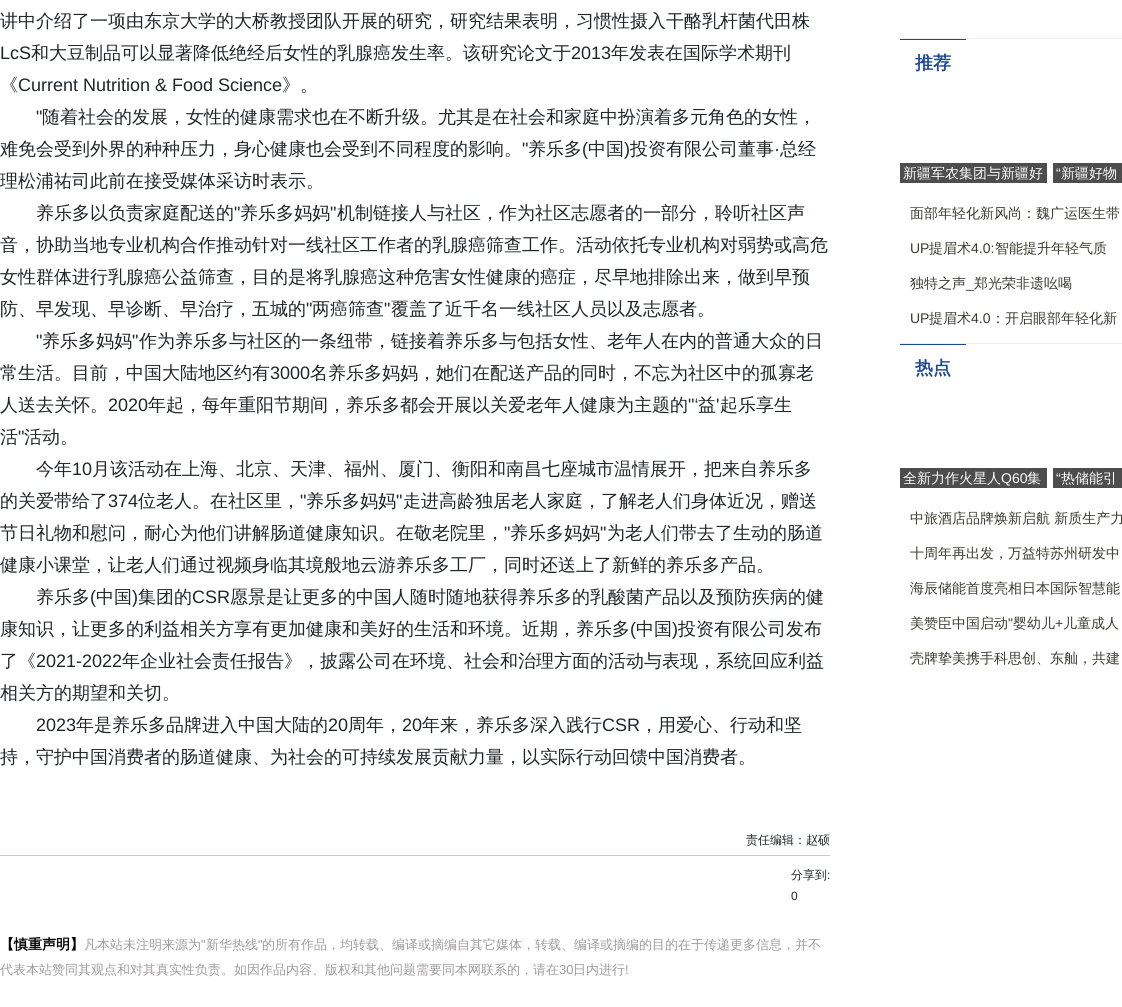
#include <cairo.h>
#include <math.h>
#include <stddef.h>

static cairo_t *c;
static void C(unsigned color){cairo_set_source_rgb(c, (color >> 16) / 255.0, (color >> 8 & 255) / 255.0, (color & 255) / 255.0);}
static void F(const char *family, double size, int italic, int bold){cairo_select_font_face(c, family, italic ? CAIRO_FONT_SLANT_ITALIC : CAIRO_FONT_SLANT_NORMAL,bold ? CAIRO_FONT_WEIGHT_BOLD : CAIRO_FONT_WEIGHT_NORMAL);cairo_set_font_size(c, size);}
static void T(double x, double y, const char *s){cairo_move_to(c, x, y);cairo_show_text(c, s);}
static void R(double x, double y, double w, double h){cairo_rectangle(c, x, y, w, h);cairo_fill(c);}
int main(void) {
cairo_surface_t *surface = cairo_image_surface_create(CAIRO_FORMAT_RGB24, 1122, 1007);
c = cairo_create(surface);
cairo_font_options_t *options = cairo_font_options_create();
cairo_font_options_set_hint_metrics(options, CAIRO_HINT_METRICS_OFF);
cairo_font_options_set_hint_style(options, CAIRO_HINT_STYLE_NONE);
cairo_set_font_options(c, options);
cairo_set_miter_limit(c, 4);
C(0xffffff);
cairo_paint(c);
F("WenQuanYi Zen Hei Medium",18,0,0);
C(0x212529);
T(0,27,"讲中介绍了一项由东京大学的大桥教授团队开展的研究，研究结果表明，习惯性摄入干酪乳杆菌代田株");
F("Liberation Sans",18,0,0);
T(0,59,"LcS");
F("WenQuanYi Zen Hei Medium",18,0,0);
T(31,59,"和大豆制品可以显著降低绝经后女性的乳腺癌发生率。该研究论文于");
F("Liberation Sans",18,0,0);
T(571,59,"2013");
F("WenQuanYi Zen Hei Medium",18,0,0);
T(611,59,"年发表在国际学术期刊");
T(0,91,"《");
F("Liberation Sans",18,0,0);
T(18,91,"Current Nutrition & Food Science");
F("WenQuanYi Zen Hei Medium",18,0,0);
T(282,91,"》。");
F("Liberation Sans",18,0,0);
T(36,123,"\"");
F("WenQuanYi Zen Hei Medium",18,0,0);
T(42,123,"随着社会的发展，女性的健康需求也在不断升级。尤其是在社会和家庭中扮演着多元角色的女性，");
T(0,155,"难免会受到外界的种种压力，身心健康也会受到不同程度的影响。");
F("Liberation Sans",18,0,0);
T(522,155,"\"");
F("WenQuanYi Zen Hei Medium",18,0,0);
T(528,155,"养乐多");
F("Liberation Sans",18,0,0);
T(582,155,"(");
F("WenQuanYi Zen Hei Medium",18,0,0);
T(588,155,"中国");
F("Liberation Sans",18,0,0);
T(624,155,")");
F("WenQuanYi Zen Hei Medium",18,0,0);
T(630,155,"投资有限公司董事");
T(780,155,"总经");
F("Liberation Sans",18,0,0);
T(774,155,"·");
F("WenQuanYi Zen Hei Medium",18,0,0);
T(0,187,"理松浦祐司此前在接受媒体采访时表示。");
T(36,219,"养乐多以负责家庭配送的");
F("Liberation Sans",18,0,0);
T(234,219,"\"");
F("WenQuanYi Zen Hei Medium",18,0,0);
T(240,219,"养乐多妈妈");
F("Liberation Sans",18,0,0);
T(330,219,"\"");
F("WenQuanYi Zen Hei Medium",18,0,0);
T(337,219,"机制链接人与社区，作为社区志愿者的一部分，聆听社区声");
T(0,251,"音，协助当地专业机构合作推动针对一线社区工作者的乳腺癌筛查工作。活动依托专业机构对弱势或高危");
T(0,283,"女性群体进行乳腺癌公益筛查，目的是将乳腺癌这种危害女性健康的癌症，尽早地排除出来，做到早预");
T(0,315,"防、早发现、早诊断、早治疗，五城的");
F("Liberation Sans",18,0,0);
T(306,315,"\"");
F("WenQuanYi Zen Hei Medium",18,0,0);
T(312,315,"两癌筛查");
F("Liberation Sans",18,0,0);
T(384,315,"\"");
F("WenQuanYi Zen Hei Medium",18,0,0);
T(391,315,"覆盖了近千名一线社区人员以及志愿者。");
F("Liberation Sans",18,0,0);
T(36,347,"\"");
F("WenQuanYi Zen Hei Medium",18,0,0);
T(42,347,"养乐多妈妈");
F("Liberation Sans",18,0,0);
T(132,347,"\"");
F("WenQuanYi Zen Hei Medium",18,0,0);
T(139,347,"作为养乐多与社区的一条纽带，链接着养乐多与包括女性、老年人在内的普通大众的日");
T(0,379,"常生活。目前，中国大陆地区约有");
F("Liberation Sans",18,0,0);
T(270,379,"3000");
F("WenQuanYi Zen Hei Medium",18,0,0);
T(310,379,"名养乐多妈妈，她们在配送产品的同时，不忘为社区中的孤寡老");
T(0,411,"人送去关怀。");
F("Liberation Sans",18,0,0);
T(108,411,"2020");
F("WenQuanYi Zen Hei Medium",18,0,0);
T(148,411,"年起，每年重阳节期间，养乐多都会开展以关爱老年人健康为主题的");
F("Liberation Sans",18,0,0);
T(688,411,"\"‘");
F("WenQuanYi Zen Hei Medium",18,0,0);
T(698,411,"益");
F("Liberation Sans",18,0,0);
T(716,411,"'");
F("WenQuanYi Zen Hei Medium",18,0,0);
T(720,411,"起乐享生");
T(0,443,"活");
F("Liberation Sans",18,0,0);
T(18,443,"\"");
F("WenQuanYi Zen Hei Medium",18,0,0);
T(24,443,"活动。");
T(36,475,"今年");
F("Liberation Sans",18,0,0);
T(72,475,"10");
F("WenQuanYi Zen Hei Medium",18,0,0);
T(92,475,"月该活动在上海、北京、天津、福州、厦门、衡阳和南昌七座城市温情展开，把来自养乐多");
T(0,507,"的关爱带给了");
F("Liberation Sans",18,0,0);
T(108,507,"374");
F("WenQuanYi Zen Hei Medium",18,0,0);
T(138,507,"位老人。在社区里，");
F("Liberation Sans",18,0,0);
T(300,507,"\"");
F("WenQuanYi Zen Hei Medium",18,0,0);
T(306,507,"养乐多妈妈");
F("Liberation Sans",18,0,0);
T(396,507,"\"");
F("WenQuanYi Zen Hei Medium",18,0,0);
T(403,507,"走进高龄独居老人家庭，了解老人们身体近况，赠送");
T(0,539,"节日礼物和慰问，耐心为他们讲解肠道健康知识。在敬老院里，");
F("Liberation Sans",18,0,0);
T(504,539,"\"");
F("WenQuanYi Zen Hei Medium",18,0,0);
T(510,539,"养乐多妈妈");
F("Liberation Sans",18,0,0);
T(600,539,"\"");
F("WenQuanYi Zen Hei Medium",18,0,0);
T(607,539,"为老人们带去了生动的肠道");
T(0,571,"健康小课堂，让老人们通过视频身临其境般地云游养乐多工厂，同时还送上了新鲜的养乐多产品。");
T(36,603,"养乐多");
F("Liberation Sans",18,0,0);
T(90,603,"(");
F("WenQuanYi Zen Hei Medium",18,0,0);
T(96,603,"中国");
F("Liberation Sans",18,0,0);
T(132,603,")");
F("WenQuanYi Zen Hei Medium",18,0,0);
T(138,603,"集团的");
F("Liberation Sans",18,0,0);
T(192,603,"CSR");
F("WenQuanYi Zen Hei Medium",18,0,0);
T(230,603,"愿景是让更多的中国人随时随地获得养乐多的乳酸菌产品以及预防疾病的健");
T(0,635,"康知识，让更多的利益相关方享有更加健康和美好的生活和环境。近期，养乐多");
F("Liberation Sans",18,0,0);
T(630,635,"(");
F("WenQuanYi Zen Hei Medium",18,0,0);
T(636,635,"中国");
F("Liberation Sans",18,0,0);
T(672,635,")");
F("WenQuanYi Zen Hei Medium",18,0,0);
T(678,635,"投资有限公司发布");
T(0,667,"了《");
F("Liberation Sans",18,0,0);
T(36,667,"2021-2022");
F("WenQuanYi Zen Hei Medium",18,0,0);
T(122,667,"年企业社会责任报告》，披露公司在环境、社会和治理方面的活动与表现，系统回应利益");
T(0,699,"相关方的期望和关切。");
F("Liberation Sans",18,0,0);
T(36,731,"2023");
F("WenQuanYi Zen Hei Medium",18,0,0);
T(76,731,"年是养乐多品牌进入中国大陆的");
F("Liberation Sans",18,0,0);
T(328,731,"20");
F("WenQuanYi Zen Hei Medium",18,0,0);
T(348,731,"周年，");
F("Liberation Sans",18,0,0);
T(402,731,"20");
F("WenQuanYi Zen Hei Medium",18,0,0);
T(422,731,"年来，养乐多深入践行");
F("Liberation Sans",18,0,0);
T(602,731,"CSR");
F("WenQuanYi Zen Hei Medium",18,0,0);
T(640,731,"，用爱心、行动和坚");
T(0,763,"持，守护中国消费者的肠道健康、为社会的可持续发展贡献力量，以实际行动回馈中国消费者。");
F("WenQuanYi Zen Hei Medium",12,0,0);
T(746,844,"责任编辑：赵硕");
C(0xcccccc);
R(0,855,830,1);
C(0x212529);
T(791,879,"分享到");
F("Liberation Sans",12,0,0);
T(827,879,":");
T(791,900,"0");
F("WenQuanYi Zen Hei",14,0,1);
C(0x000000);
T(0,949,"【慎重声明】");
F("WenQuanYi Zen Hei Medium",13,0,0);
C(0x9e9b9b);
T(84,949,"凡本站未注明来源为");
F("Liberation Sans",13,0,0);
T(201,949,"\"");
F("WenQuanYi Zen Hei Medium",13,0,0);
T(206,949,"新华热线");
F("Liberation Sans",13,0,0);
T(258,949,"\"");
F("WenQuanYi Zen Hei Medium",13,0,0);
T(262,949,"的所有作品，均转载、编译或摘编自其它媒体，转载、编译或摘编的目的在于传递更多信息，并不");
T(0,974,"代表本站赞同其观点和对其真实性负责。如因作品内容、版权和其他问题需要同本网联系的，请在");
F("Liberation Sans",13,0,0);
T(559,974,"30");
F("WenQuanYi Zen Hei Medium",13,0,0);
T(573,974,"日内进行");
F("Liberation Sans",13,0,0);
T(625,974,"!");
C(0xeeeeee);
R(900,38,222,1);
C(0x1d4992);
R(900,39,66,1);
F("WenQuanYi Zen Hei",18,0,1);
T(915,69,"推荐");
C(0x4d4d4d);
R(900,163,147,20);
F("WenQuanYi Zen Hei Medium",14,0,0);
C(0xffffff);
T(903,178,"新疆军农集团与新疆好");
C(0x4d4d4d);
R(1053,163,69,20);
F("Liberation Sans",14,0,0);
C(0xffffff);
T(1056,178,"“");
F("WenQuanYi Zen Hei Medium",14,0,0);
T(1061,178,"新疆好物");
C(0x3a3a31);
T(910,218,"面部年轻化新风尚：魏广运医生带");
F("Liberation Sans",14,0,0);
T(910,253,"UP");
F("WenQuanYi Zen Hei Medium",14,0,0);
T(929,253,"提眉术");
F("Liberation Sans",14,0,0);
T(971,253,"4.0:");
F("WenQuanYi Zen Hei Medium",14,0,0);
T(995,253,"智能提升年轻气质");
T(910,288,"独特之声");
F("Liberation Sans",14,0,0);
T(966,288,"_");
F("WenQuanYi Zen Hei Medium",14,0,0);
T(974,288,"郑光荣非遗吆喝");
F("Liberation Sans",14,0,0);
T(910,323,"UP");
F("WenQuanYi Zen Hei Medium",14,0,0);
T(929,323,"提眉术");
F("Liberation Sans",14,0,0);
T(971,323,"4.0");
F("WenQuanYi Zen Hei Medium",14,0,0);
T(991,323,"：开启眼部年轻化新");
C(0xeeeeee);
R(900,343,222,1);
C(0x1d4992);
R(900,344,66,1);
F("WenQuanYi Zen Hei",18,0,1);
T(915,374,"热点");
C(0x4d4d4d);
R(900,468,147,20);
F("WenQuanYi Zen Hei Medium",14,0,0);
C(0xffffff);
T(903,483,"全新力作火星人");
F("Liberation Sans",14,0,0);
T(1001,483,"Q60");
F("WenQuanYi Zen Hei Medium",14,0,0);
T(1027,483,"集");
C(0x4d4d4d);
R(1053,468,69,20);
F("Liberation Sans",14,0,0);
C(0xffffff);
T(1056,483,"“");
F("WenQuanYi Zen Hei Medium",14,0,0);
T(1061,483,"热储能引");
C(0x3a3a31);
T(910,523,"中旅酒店品牌焕新启航 新质生产力");
T(910,558,"十周年再出发，万益特苏州研发中");
T(910,593,"海辰储能首度亮相日本国际智慧能");
T(910,628,"美赞臣中国启动");
F("Liberation Sans",14,0,0);
T(1008,628,"\"");
F("WenQuanYi Zen Hei Medium",14,0,0);
T(1013,628,"婴幼儿");
F("Liberation Sans",14,0,0);
T(1055,628,"+");
F("WenQuanYi Zen Hei Medium",14,0,0);
T(1063,628,"儿童成人");
T(910,663,"壳牌挚美携手科思创、东舢，共建");
cairo_surface_write_to_png(surface, "o.png");
cairo_font_options_destroy(options);
cairo_destroy(c);
cairo_surface_destroy(surface);
return 0;
}
